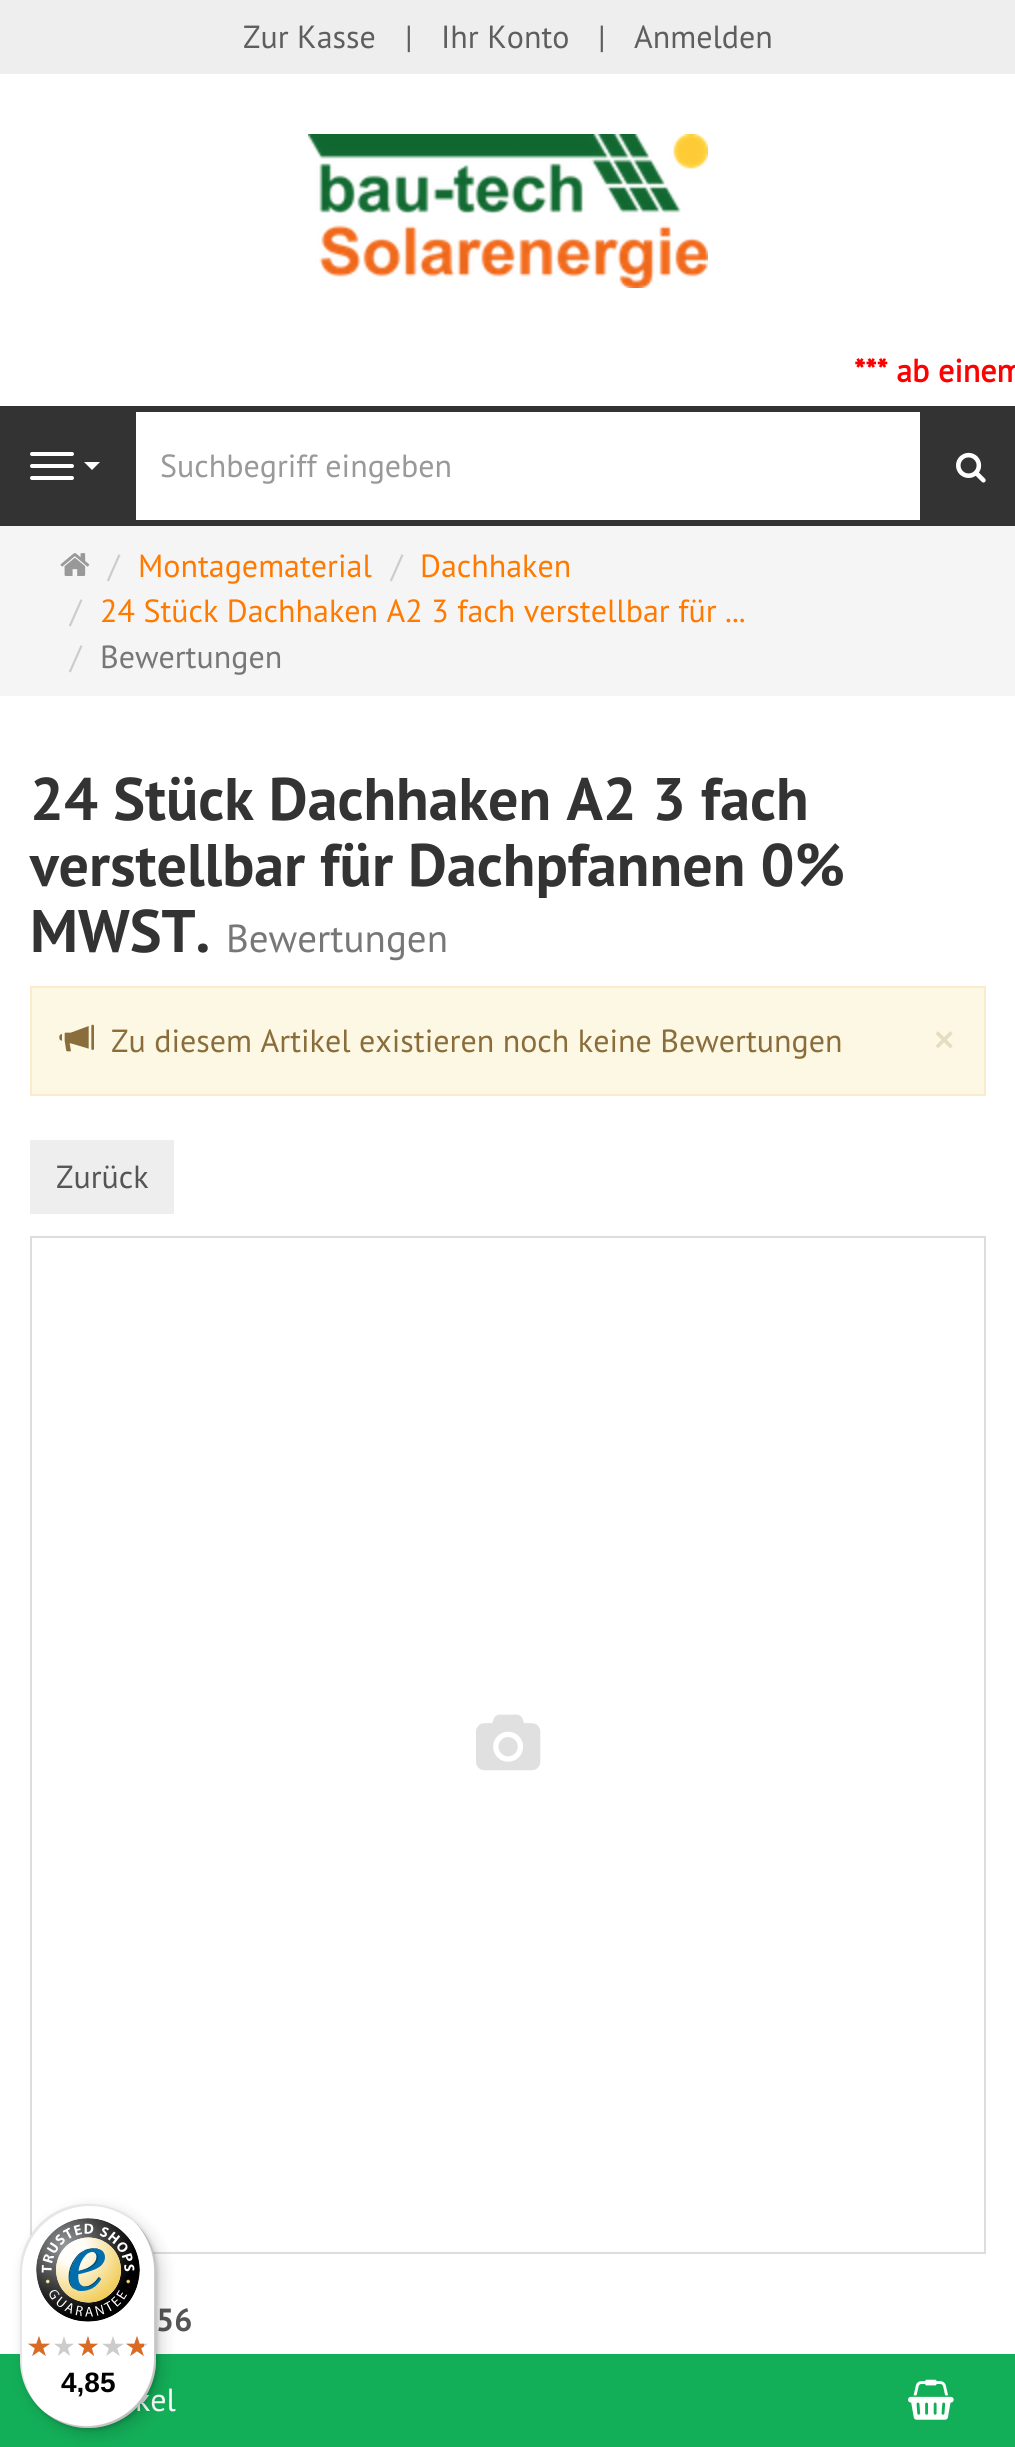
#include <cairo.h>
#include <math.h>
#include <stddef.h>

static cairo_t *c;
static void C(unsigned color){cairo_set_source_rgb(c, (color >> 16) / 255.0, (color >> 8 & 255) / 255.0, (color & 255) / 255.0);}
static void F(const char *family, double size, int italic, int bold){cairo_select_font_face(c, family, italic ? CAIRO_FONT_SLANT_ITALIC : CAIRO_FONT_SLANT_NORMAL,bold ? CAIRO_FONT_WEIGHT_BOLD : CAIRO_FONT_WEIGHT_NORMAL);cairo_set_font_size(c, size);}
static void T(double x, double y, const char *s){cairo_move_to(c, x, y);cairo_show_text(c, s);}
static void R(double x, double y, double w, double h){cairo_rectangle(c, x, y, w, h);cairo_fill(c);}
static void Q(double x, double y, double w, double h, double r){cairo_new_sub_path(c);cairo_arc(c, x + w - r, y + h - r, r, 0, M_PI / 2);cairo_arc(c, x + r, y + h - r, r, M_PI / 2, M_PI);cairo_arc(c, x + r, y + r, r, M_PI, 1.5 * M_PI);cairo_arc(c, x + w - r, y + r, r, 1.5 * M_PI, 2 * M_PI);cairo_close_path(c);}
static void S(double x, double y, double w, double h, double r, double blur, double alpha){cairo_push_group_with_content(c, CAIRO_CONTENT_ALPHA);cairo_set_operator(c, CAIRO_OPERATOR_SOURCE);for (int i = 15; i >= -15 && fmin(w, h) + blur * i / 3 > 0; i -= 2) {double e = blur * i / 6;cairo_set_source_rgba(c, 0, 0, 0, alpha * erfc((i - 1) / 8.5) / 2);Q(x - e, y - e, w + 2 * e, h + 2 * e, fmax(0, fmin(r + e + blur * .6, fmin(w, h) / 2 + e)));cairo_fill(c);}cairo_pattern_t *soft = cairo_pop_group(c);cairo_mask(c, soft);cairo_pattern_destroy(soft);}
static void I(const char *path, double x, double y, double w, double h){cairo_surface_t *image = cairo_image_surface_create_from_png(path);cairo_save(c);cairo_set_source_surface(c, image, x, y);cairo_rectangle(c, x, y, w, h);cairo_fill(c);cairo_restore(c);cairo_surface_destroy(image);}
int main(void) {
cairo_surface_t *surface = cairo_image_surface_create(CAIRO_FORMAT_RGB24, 1015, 2447);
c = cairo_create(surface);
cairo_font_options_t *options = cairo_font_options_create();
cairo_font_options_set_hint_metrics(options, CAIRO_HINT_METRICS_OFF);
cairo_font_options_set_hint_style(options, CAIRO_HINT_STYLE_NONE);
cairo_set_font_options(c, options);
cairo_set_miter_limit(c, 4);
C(0xffffff);
cairo_paint(c);
C(0xeeeeee);
R(0,0,1015,74);
F("PT Sans",32,0,0);
C(0x5e5e5e);
T(243,48,"Zur Kasse");
T(405,48,"|");
T(441,48,"Ihr Konto");
T(598,48,"|");
T(634,48,"Anmelden");
I("1.png",308,134,400,154);
F("PT Sans",32,0,1);
C(0xff0000);
T(854,382,"*** ab einem");
C(0x333333);
R(0,406,1015,120);
C(0xffffff);
Q(30,452,44,4,2);
cairo_fill(c);
Q(30,464,44,4,2);
cairo_fill(c);
Q(30,476,44,4,2);
cairo_fill(c);
cairo_new_path(c);
cairo_move_to(c,84,462);
cairo_line_to(c,100,462);
cairo_line_to(c,92,470);
cairo_close_path(c);
cairo_fill(c);
R(136,412,784,108);
F("PT Sans",32,0,0);
C(0x999999);
T(160,477,"Suchbegriff eingeben");
I("2.png",956,452,30,31);
C(0xf5f5f5);
R(0,526,1015,170);
I("3.png",60,553,30,23);
C(0xcccccc);
T(108,577,"/");
C(0xff7a00);
T(138,577,"Montagematerial");
C(0xcccccc);
T(391,577,"/");
C(0xff7a00);
T(420,577,"Dachhaken");
C(0xcccccc);
T(70,622,"/");
C(0xff7a00);
T(100,622,"24 Stück Dachhaken A2 3 fach verstellbar für ...");
C(0xcccccc);
T(70,668,"/");
C(0x777777);
T(100,668,"Bewertungen");
F("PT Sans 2",60,0,1);
C(0x333333);
T(30,820,"24 Stück Dachhaken A2 3 fach");
T(30,886,"verstellbar für Dachpfannen 0%");
T(30,952,"MWST.");
F("PT Sans",39,0,0);
C(0x777777);
T(226,952,"Bewertungen");
C(0xfcf8e3);
cairo_rectangle(c,31,987,954,108);
cairo_fill_preserve(c);
C(0xfaebcc);
cairo_stroke(c);
I("4.png",59,1024,35,28);
F("PT Sans",32,0,0);
C(0x8a6d3b);
T(111,1052,"Zu diesem Artikel existieren noch keine Bewertungen");
F("PT Sans",48,0,0);
C(0xe5dcc1);
T(932,1056,"×");
C(0xeeeeee);
R(30,1140,144,74);
F("PT Sans",32,0,0);
C(0x555555);
T(56,1188,"Zurück");
cairo_rectangle(c,31,1237,954,1016);
C(0xdddddd);
cairo_stroke(c);
I("5.png",476,1714,65,57);
F("PT Sans 2",32,0,1);
C(0x555555);
T(156,2331,"56");
C(0x13ae58);
R(0,2354,1015,93);
F("PT Sans",32,0,0);
C(0xffffff);
T(135,2411,"kel");
I("6.png",908,2379,46,41);
C(0x000000);
S(26,2210,136,224,68,8,.15);
S(22,2206,136,224,68,2,.15);
C(0xffffff);
Q(20,2204,136,224,68);
cairo_fill(c);
cairo_set_source_rgba(c,0,0,0,0.1);
cairo_new_path(c);
cairo_move_to(c,90,2206);
cairo_curve_to(c,106,2206,121,2212,133,2221);
cairo_curve_to(c,121,2210,105,2204,88,2204);
cairo_curve_to(c,50,2204,20,2234,20,2272);
cairo_line_to(c,20,2360);
cairo_curve_to(c,20,2377,26,2393,37,2405);
cairo_curve_to(c,28,2393,22,2378,22,2362);
cairo_line_to(c,22,2274);
cairo_curve_to(c,22,2236,52,2206,90,2206);
cairo_close_path(c);
cairo_fill(c);
cairo_set_source_rgba(c,0,0,0,0.2);
cairo_new_path(c);
cairo_move_to(c,43,2411);
cairo_curve_to(c,55,2422,71,2428,88,2428);
cairo_curve_to(c,126,2428,156,2398,156,2360);
cairo_line_to(c,156,2272);
cairo_curve_to(c,156,2255,150,2239,139,2227);
cairo_curve_to(c,148,2239,154,2254,154,2270);
cairo_line_to(c,154,2358);
cairo_curve_to(c,154,2396,124,2426,86,2426);
cairo_curve_to(c,70,2426,55,2420,43,2411);
cairo_close_path(c);
cairo_fill(c);
cairo_set_source_rgba(c,0.196,0.196,0.196,0.2);
cairo_new_path(c);
cairo_move_to(c,38,2407);
cairo_curve_to(c,51,2420,68,2428,88,2428);
cairo_curve_to(c,126,2428,156,2398,156,2360);
cairo_line_to(c,156,2272);
cairo_curve_to(c,156,2252,148,2235,135,2222);
cairo_curve_to(c,147,2235,155,2252,155,2271);
cairo_line_to(c,155,2359);
cairo_curve_to(c,155,2396,124,2427,87,2427);
cairo_curve_to(c,68,2427,51,2419,38,2407);
cairo_close_path(c);
cairo_fill(c);
cairo_set_source_rgba(c,1,1,1,0.3);
cairo_new_path(c);
cairo_move_to(c,47,2414);
cairo_curve_to(c,59,2423,73,2428,88,2428);
cairo_curve_to(c,126,2428,156,2398,156,2360);
cairo_line_to(c,156,2272);
cairo_curve_to(c,156,2257,151,2243,142,2231);
cairo_curve_to(c,150,2242,155,2256,155,2271);
cairo_line_to(c,155,2359);
cairo_curve_to(c,155,2397,125,2427,87,2427);
cairo_curve_to(c,72,2427,58,2422,47,2414);
cairo_close_path(c);
cairo_fill(c);
I("7.png",36,2218,104,104);
I("8.png",28,2336,22,20);
I("9.png",54,2336,20,20);
I("10.png",78,2336,20,20);
I("11.png",102,2336,22,20);
I("11.png",126,2336,22,20);
I("12.png",28,2336,22,20);
I("13.png",78,2336,20,20);
I("14.png",126,2336,18,20);
F("Liberation Sans",28,0,1);
C(0x000000);
T(61,2392,"4,85");
cairo_surface_write_to_png(surface, "o.png");
cairo_font_options_destroy(options);
cairo_destroy(c);
cairo_surface_destroy(surface);
return 0;
}
